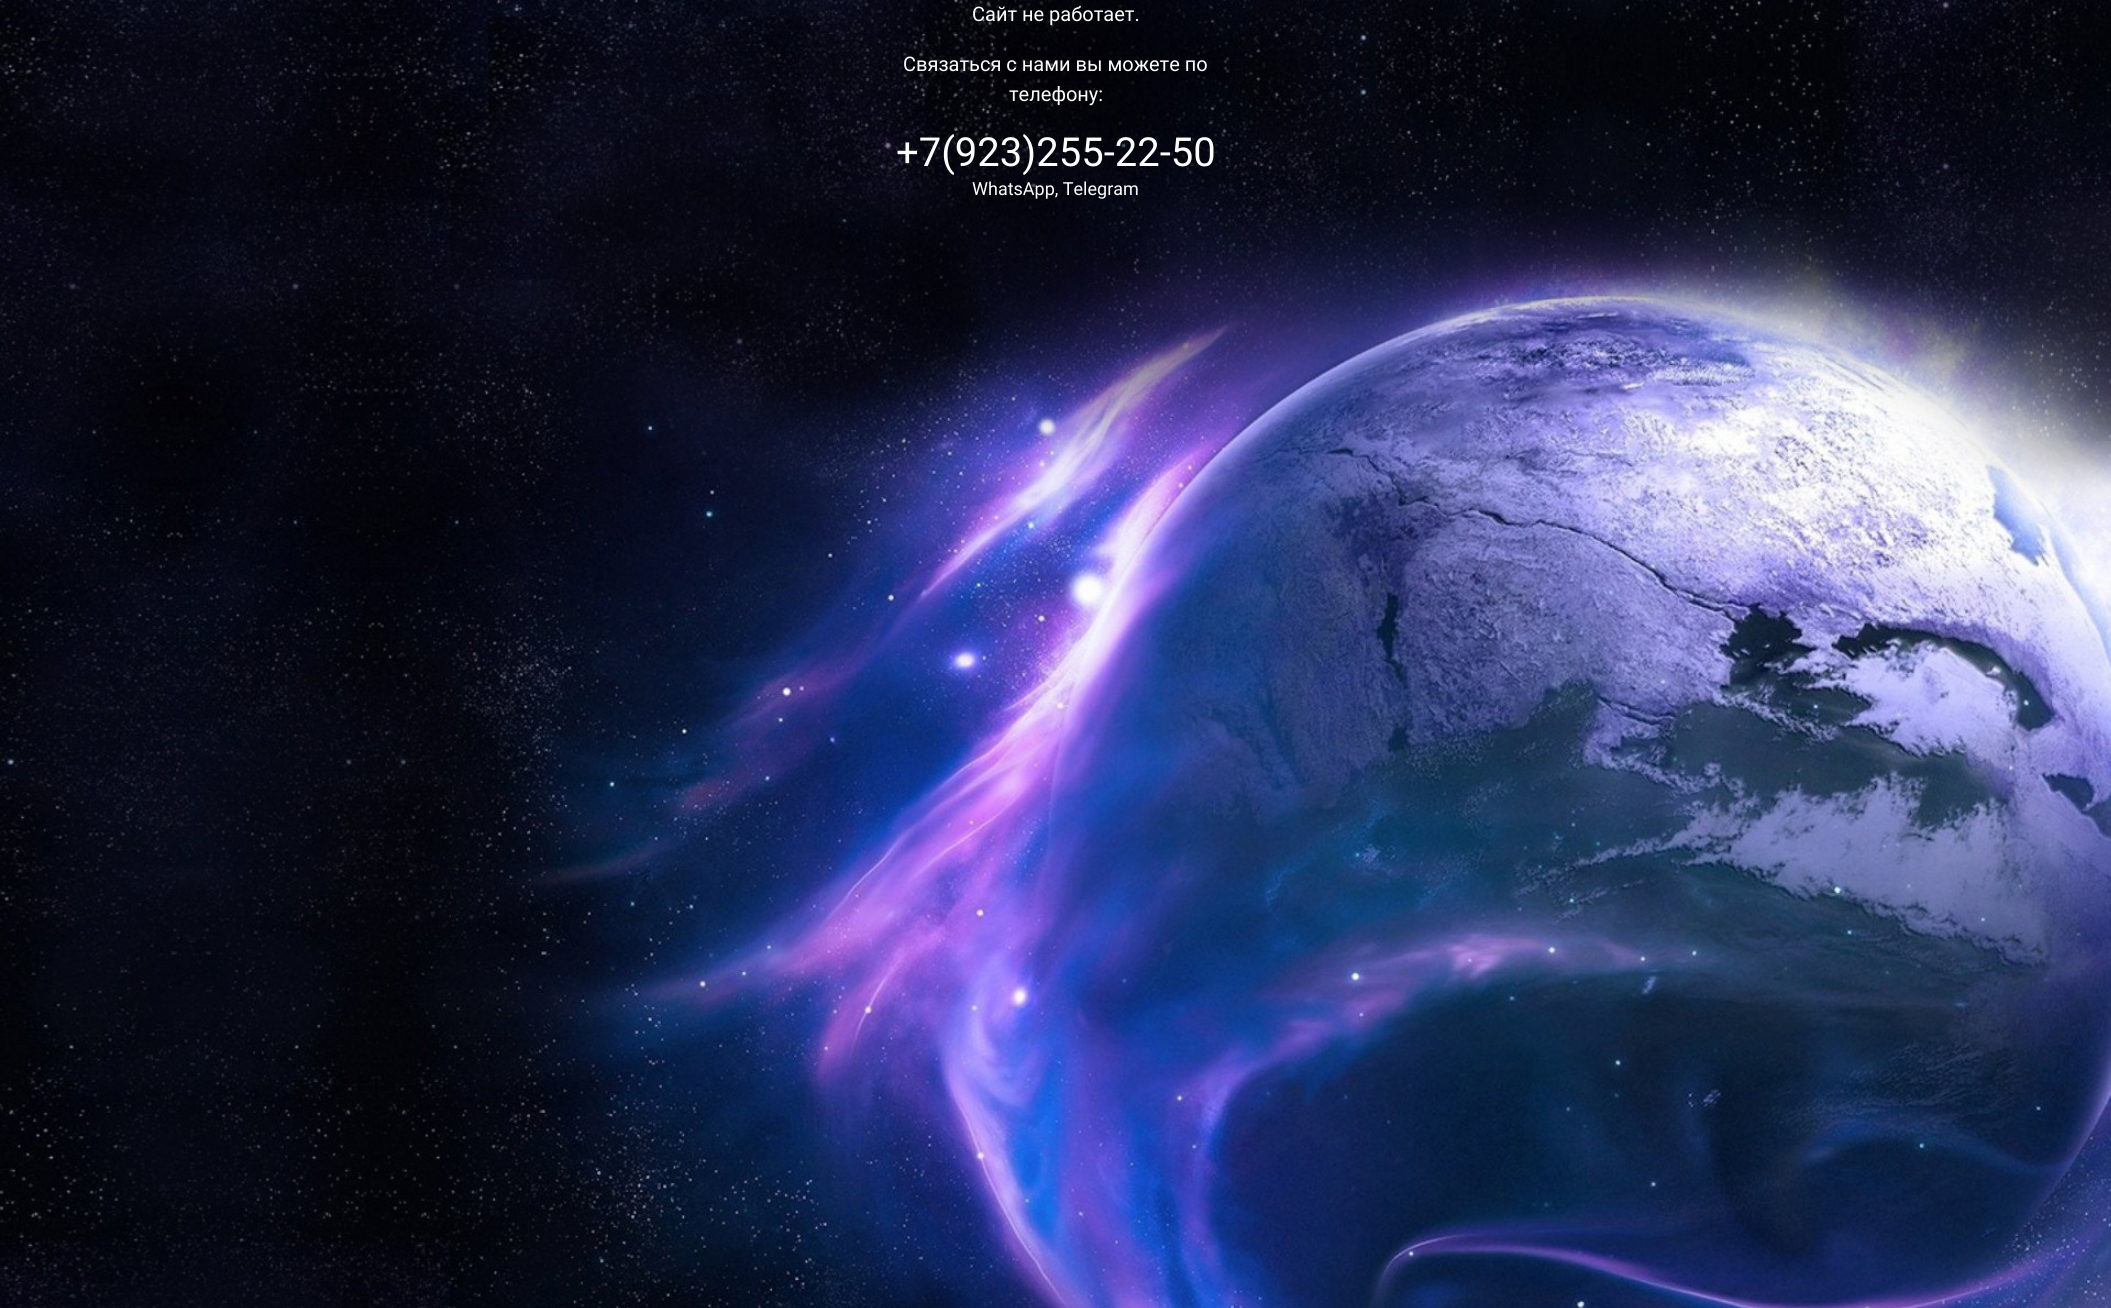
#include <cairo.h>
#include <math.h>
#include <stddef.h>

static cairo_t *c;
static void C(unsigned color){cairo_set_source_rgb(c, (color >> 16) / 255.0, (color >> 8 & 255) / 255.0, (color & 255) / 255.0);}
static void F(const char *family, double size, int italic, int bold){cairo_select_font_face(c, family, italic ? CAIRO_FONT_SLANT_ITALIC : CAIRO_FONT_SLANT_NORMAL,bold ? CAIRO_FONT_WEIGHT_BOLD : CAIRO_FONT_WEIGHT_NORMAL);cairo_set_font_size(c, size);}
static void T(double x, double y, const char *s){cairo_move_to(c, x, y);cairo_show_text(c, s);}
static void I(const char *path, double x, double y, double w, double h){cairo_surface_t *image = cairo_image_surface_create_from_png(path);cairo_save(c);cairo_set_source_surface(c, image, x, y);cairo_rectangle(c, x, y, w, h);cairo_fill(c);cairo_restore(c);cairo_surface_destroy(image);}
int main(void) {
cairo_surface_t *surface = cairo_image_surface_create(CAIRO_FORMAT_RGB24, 2111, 1308);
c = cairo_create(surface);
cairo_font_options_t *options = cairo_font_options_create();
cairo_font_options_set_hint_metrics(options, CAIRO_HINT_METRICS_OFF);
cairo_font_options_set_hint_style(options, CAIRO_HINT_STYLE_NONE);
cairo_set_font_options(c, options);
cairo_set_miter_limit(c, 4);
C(0xffffff);
cairo_paint(c);
I("1.png",0,0,2111,1308);
F("Roboto",20,0,0);
C(0xffffff);
T(972,21,"Сайт не работает.");
T(903,71,"Связаться с нами вы можете по");
T(1009,101,"телефону:");
F("Roboto",40,0,0);
T(896,166,"+7(923)255-22-50");
F("Roboto",18,0,0);
T(972,195,"WhatsApp, Telegram");
cairo_surface_write_to_png(surface, "o.png");
cairo_font_options_destroy(options);
cairo_destroy(c);
cairo_surface_destroy(surface);
return 0;
}
